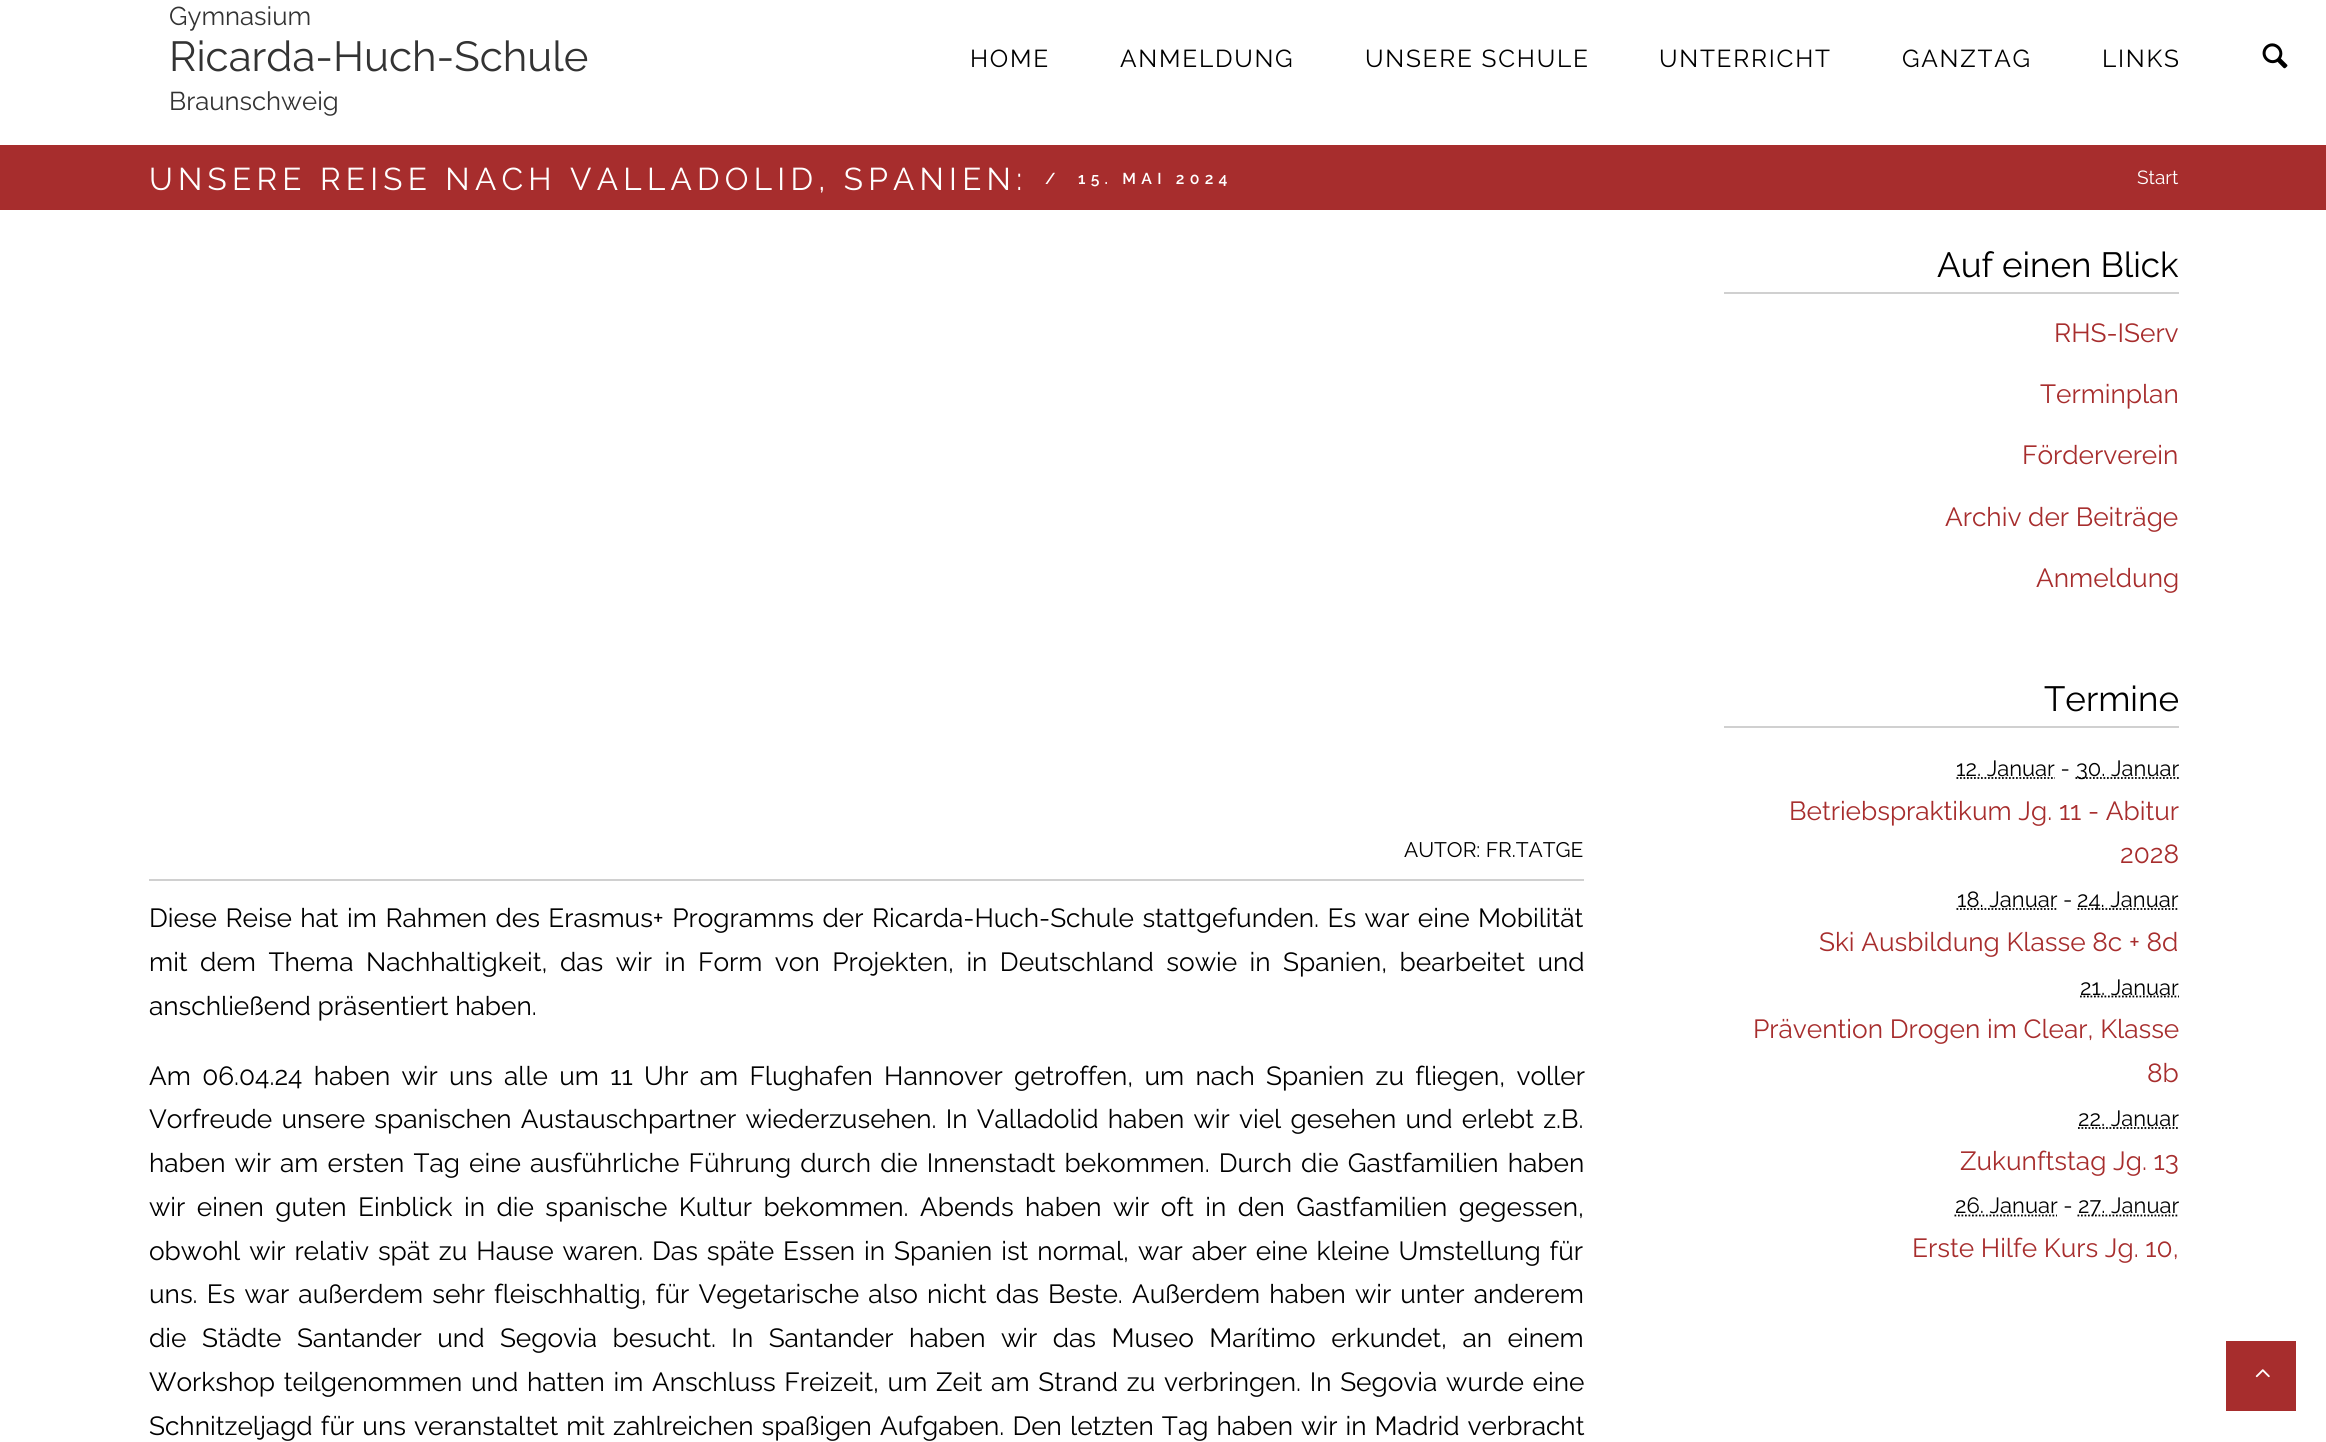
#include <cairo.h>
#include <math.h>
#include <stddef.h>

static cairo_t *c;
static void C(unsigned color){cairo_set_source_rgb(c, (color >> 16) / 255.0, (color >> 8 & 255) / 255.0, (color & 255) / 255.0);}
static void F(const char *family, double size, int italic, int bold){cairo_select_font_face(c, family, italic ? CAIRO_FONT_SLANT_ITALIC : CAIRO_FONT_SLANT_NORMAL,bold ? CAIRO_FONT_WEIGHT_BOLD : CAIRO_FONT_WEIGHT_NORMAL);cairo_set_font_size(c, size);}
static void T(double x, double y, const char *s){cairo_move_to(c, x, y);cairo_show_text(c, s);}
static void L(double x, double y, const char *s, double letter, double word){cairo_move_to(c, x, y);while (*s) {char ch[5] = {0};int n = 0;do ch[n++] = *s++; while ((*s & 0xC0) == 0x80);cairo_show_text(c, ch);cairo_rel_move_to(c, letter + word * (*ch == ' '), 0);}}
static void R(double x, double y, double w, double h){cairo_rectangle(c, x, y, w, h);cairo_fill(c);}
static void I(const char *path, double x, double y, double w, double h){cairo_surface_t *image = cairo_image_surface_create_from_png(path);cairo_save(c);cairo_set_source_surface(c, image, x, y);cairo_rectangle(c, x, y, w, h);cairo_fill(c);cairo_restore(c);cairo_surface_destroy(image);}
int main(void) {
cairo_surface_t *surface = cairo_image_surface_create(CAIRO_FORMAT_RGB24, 2326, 1442);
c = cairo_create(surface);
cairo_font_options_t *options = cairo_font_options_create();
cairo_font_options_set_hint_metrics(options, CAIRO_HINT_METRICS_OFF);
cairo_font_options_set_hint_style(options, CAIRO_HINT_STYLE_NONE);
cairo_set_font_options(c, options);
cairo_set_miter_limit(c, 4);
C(0xffffff);
cairo_paint(c);
F("Raleway",25.75,0,0);
C(0x333333);
T(169,25,"Gymnasium");
F("Raleway",42,0,0);
T(169,71,"Ricarda-Huch-Schule");
F("Raleway",25.75,0,0);
T(169,110,"Braunschweig");
F("Raleway",24.5,0,0);
C(0x000000);
L(970,67,"HOME",1.75,0);
L(1120,67,"ANMELDUNG",1.75,0);
L(1365,67,"UNSERE SCHULE",1.75,0);
L(1659,67,"UNTERRICHT",1.75,0);
L(1902,67,"GANZTAG",1.75,0);
L(2102,67,"LINKS",1.75,0);
I("1.png",2262,43,26,26);
C(0xa72d2d);
R(0,145,2326,65);
F("Raleway",31.5,0,0);
C(0xffffff);
L(149,190,"UNSERE REISE NACH VALLADOLID, SPANIEN:",5.25,0);
F("Raleway SemiBold",15.75,0,0);
L(1045,184,"/",5.25,0);
L(1078,184,"15. MAI 2024",5.25,0);
F("Raleway",19,0,0);
T(2137,184,"Start");
C(0xd0d0d0);
R(149,879,1435,2);
F("Raleway",21,0,0);
C(0x000000);
T(1404,857,"AUTOR: FR.TATGE");
F("Raleway",26.25,0,0);
L(149,927,"Diese Reise hat im Rahmen des Erasmus+ Programms der Ricarda-Huch-Schule stattgefunden. Es war eine Mobilität",0,1.75);
L(149,971,"mit dem Thema Nachhaltigkeit, das wir in Form von Projekten, in Deutschland sowie in Spanien, bearbeitet und",0,5.75);
T(149,1015,"anschließend präsentiert haben.");
L(149,1085,"Am 06.04.24 haben wir uns alle um 11 Uhr am Flughafen Hannover getroffen, um nach Spanien zu fliegen, voller",0,4.6);
L(149,1128,"Vorfreude unsere spanischen Austauschpartner wiederzusehen. In Valladolid haben wir viel gesehen und erlebt z.B.",0,2.5);
L(149,1172,"haben wir am ersten Tag eine ausführliche Führung durch die Innenstadt bekommen. Durch die Gastfamilien haben",0,2.4);
L(149,1216,"wir einen guten Einblick in die spanische Kultur bekommen. Abends haben wir oft in den Gastfamilien gegessen,",0,4.75);
L(149,1260,"obwohl wir relativ spät zu Hause waren. Das späte Essen in Spanien ist normal, war aber eine kleine Umstellung für",0,2.25);
L(149,1303,"uns. Es war außerdem sehr fleischhaltig, für Vegetarische also nicht das Beste. Außerdem haben wir unter anderem",0,2.4);
L(149,1347,"die Städte Santander und Segovia besucht. In Santander haben wir das Museo Marítimo erkundet, an einem",0,8.75);
L(149,1391,"Workshop teilgenommen und hatten im Anschluss Freizeit, um Zeit am Strand zu verbringen. In Segovia wurde eine",0,2);
L(149,1435,"Schnitzeljagd für uns veranstaltet mit zahlreichen spaßigen Aufgaben. Den letzten Tag haben wir in Madrid verbracht",0,1.4);
C(0xd0d0d0);
R(1724,292,455,2);
F("Raleway",35,0,0);
C(0x000000);
T(1937,277,"Auf einen Blick");
F("Raleway",26.25,0,0);
C(0xa72d2d);
T(2054,342,"RHS-IServ");
T(2040,403,"Terminplan");
T(2022,464,"Förderverein");
T(1945,526,"Archiv der Beiträge");
T(2036,587,"Anmeldung");
C(0xd0d0d0);
R(1724,726,455,2);
F("Raleway",35,0,0);
C(0x000000);
T(2044,711,"Termine");
F("Raleway",22,0,0);
T(1956,776,"12. Januar -");
cairo_new_path(c);
cairo_move_to(c,1956.5,778);
cairo_line_to(c,2055,778);
cairo_set_line_width(c,1.8);
cairo_set_dash(c,(double[]){1.75,1.75},2,0);
cairo_stroke(c);
cairo_new_path(c);
cairo_move_to(c,2075.5,778);
cairo_line_to(c,2179,778);
cairo_stroke(c);
T(2076,776,"30. Januar");
F("Raleway",26.25,0,0);
C(0xa72d2d);
T(1789,820,"Betriebspraktikum Jg. 11 - Abitur");
T(2120,863,"2028");
F("Raleway",22,0,0);
C(0x000000);
T(1957,907,"18. Januar -");
cairo_new_path(c);
cairo_move_to(c,1956.5,909);
cairo_line_to(c,2057,909);
cairo_stroke(c);
cairo_new_path(c);
cairo_move_to(c,2077.5,909);
cairo_line_to(c,2179,909);
cairo_stroke(c);
T(2077,907,"24. Januar");
F("Raleway",26.25,0,0);
C(0xa72d2d);
T(1819,951,"Ski Ausbildung Klasse 8c + 8d");
cairo_new_path(c);
cairo_move_to(c,2080,996.5);
cairo_line_to(c,2179,996.5);
C(0x000000);
cairo_stroke(c);
F("Raleway",22,0,0);
T(2080,995,"21. Januar");
F("Raleway",26.25,0,0);
C(0xa72d2d);
T(1753,1038,"Prävention Drogen im Clear, Klasse");
T(2147,1082,"8b");
F("Raleway",22,0,0);
C(0x000000);
T(2078,1126,"22. Januar");
cairo_new_path(c);
cairo_move_to(c,2078,1128);
cairo_line_to(c,2179,1128);
cairo_stroke(c);
F("Raleway",26.25,0,0);
C(0xa72d2d);
T(1960,1170,"Zukunftstag Jg. 13");
F("Raleway",22,0,0);
C(0x000000);
T(1955,1213,"26. Januar -");
cairo_new_path(c);
cairo_move_to(c,1954.5,1215.5);
cairo_line_to(c,2057,1215.5);
cairo_stroke(c);
cairo_new_path(c);
cairo_move_to(c,2077.5,1215.5);
cairo_line_to(c,2179,1215.5);
cairo_stroke(c);
T(2078,1213,"27. Januar");
F("Raleway",26.25,0,0);
C(0xa72d2d);
T(1912,1257,"Erste Hilfe Kurs Jg. 10,");
R(2226,1341,70,70);
I("2.png",2255,1369,15,9);
cairo_surface_write_to_png(surface, "o.png");
cairo_font_options_destroy(options);
cairo_destroy(c);
cairo_surface_destroy(surface);
return 0;
}
